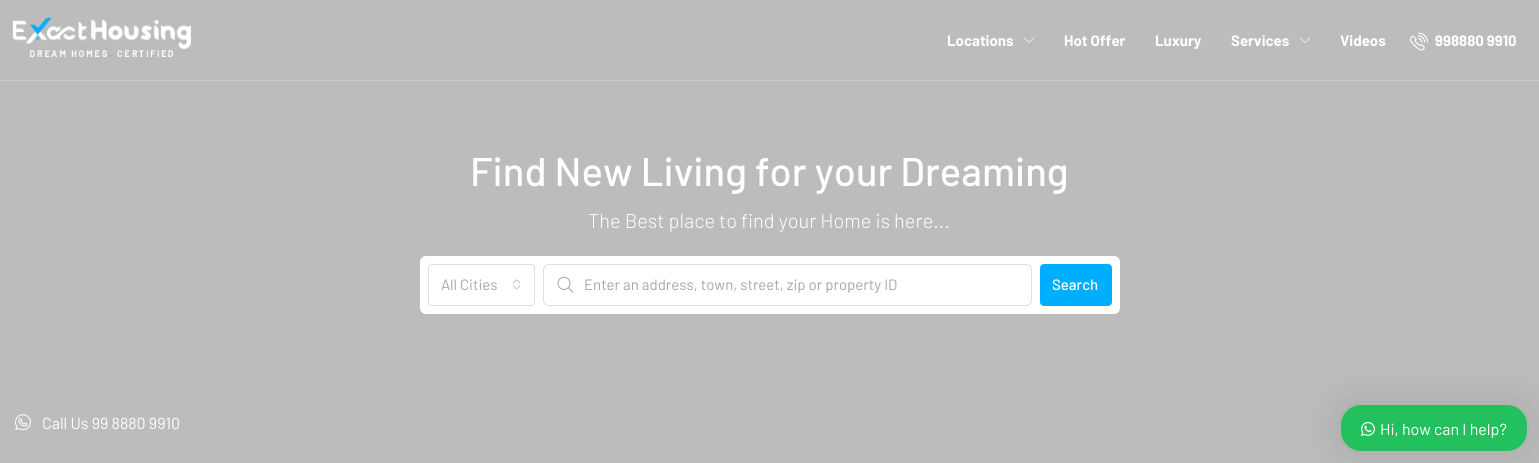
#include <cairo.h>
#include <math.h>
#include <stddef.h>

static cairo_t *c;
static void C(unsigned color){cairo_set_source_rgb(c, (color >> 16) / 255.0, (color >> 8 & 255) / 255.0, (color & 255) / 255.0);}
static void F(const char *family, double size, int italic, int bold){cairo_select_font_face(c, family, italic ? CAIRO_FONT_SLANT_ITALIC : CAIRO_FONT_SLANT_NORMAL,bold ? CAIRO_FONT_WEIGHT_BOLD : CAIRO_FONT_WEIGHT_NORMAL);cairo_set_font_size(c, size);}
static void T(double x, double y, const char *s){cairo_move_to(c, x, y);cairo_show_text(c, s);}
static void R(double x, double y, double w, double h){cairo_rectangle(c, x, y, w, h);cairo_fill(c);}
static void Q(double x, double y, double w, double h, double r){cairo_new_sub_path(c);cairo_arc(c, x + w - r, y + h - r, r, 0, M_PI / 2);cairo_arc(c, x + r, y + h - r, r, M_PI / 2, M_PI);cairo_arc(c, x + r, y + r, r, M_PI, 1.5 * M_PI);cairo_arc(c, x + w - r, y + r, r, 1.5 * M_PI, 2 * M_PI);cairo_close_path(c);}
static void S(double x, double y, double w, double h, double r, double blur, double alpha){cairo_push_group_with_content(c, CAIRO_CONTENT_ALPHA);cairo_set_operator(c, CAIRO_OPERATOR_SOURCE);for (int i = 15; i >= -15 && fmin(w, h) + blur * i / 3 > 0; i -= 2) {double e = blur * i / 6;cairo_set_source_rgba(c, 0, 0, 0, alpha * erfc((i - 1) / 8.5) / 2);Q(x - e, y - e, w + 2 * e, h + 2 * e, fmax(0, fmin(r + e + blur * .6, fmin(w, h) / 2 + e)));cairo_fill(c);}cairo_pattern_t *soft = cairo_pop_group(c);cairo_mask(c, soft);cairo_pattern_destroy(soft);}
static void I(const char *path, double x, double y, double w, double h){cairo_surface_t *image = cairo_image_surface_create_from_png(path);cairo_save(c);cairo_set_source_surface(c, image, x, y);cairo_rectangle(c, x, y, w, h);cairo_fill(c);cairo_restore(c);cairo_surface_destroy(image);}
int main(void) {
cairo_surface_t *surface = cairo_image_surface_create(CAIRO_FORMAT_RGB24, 1539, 463);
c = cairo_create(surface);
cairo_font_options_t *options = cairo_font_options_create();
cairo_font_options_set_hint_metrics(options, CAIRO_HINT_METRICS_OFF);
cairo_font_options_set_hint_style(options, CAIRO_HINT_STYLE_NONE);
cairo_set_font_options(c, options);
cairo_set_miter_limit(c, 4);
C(0xbcbcbc);
cairo_paint(c);
C(0xc9c9c9);
R(0,80,1539,1);
I("1.png",12,17,179,40);
F("Barlow",15,0,1);
C(0xffffff);
T(947,46,"Locations");
I("2.png",1024,37,10,6);
T(1064,46,"Hot Offer");
T(1155,46,"Luxury");
T(1231,46,"Services");
I("2.png",1300,37,10,6);
T(1340,46,"Videos");
I("3.png",1410,32,18,19);
T(1435,46,"998880 9910");
F("Barlow Medium",40,0,0);
T(470,186,"Find New Living for your Dreaming");
F("Barlow Light",20,0,0);
T(588,228,"The Best place to find your Home is here...");
Q(420,256,700,58,6);
cairo_fill(c);
Q(428.5,264.5,106,41,3.5);
C(0xdce0e0);
cairo_set_line_width(c,1);
cairo_stroke(c);
F("Barlow",15,0,0);
C(0xa1a7a8);
T(441,290,"All Cities");
I("4.png",512,279,9,11);
Q(543.5,264.5,488,41,5.5);
C(0xdce0e0);
cairo_stroke(c);
I("5.png",557,276,17,17);
C(0xa1a7a8);
T(584,290,"Enter an address, town, street, zip or property ID");
C(0x00aeff);
Q(1040.5,264.5,71,41,3.5);
cairo_fill_preserve(c);
cairo_stroke(c);
F("Barlow Medium",15,0,0);
C(0xffffff);
T(1052,290,"Search");
I("6.png",15,414,16,17);
F("Barlow",16,0,0);
T(42,429,"Call Us 99 8880 9910");
C(0x000000);
S(1341,405,186,46,20,25,.1);
C(0x22c15e);
Q(1341,405,186,46,20);
cairo_fill(c);
I("7.png",1361,422,14,14);
C(0xffffff);
T(1380,435,"Hi, how can I help?");
cairo_surface_write_to_png(surface, "o.png");
cairo_font_options_destroy(options);
cairo_destroy(c);
cairo_surface_destroy(surface);
return 0;
}
